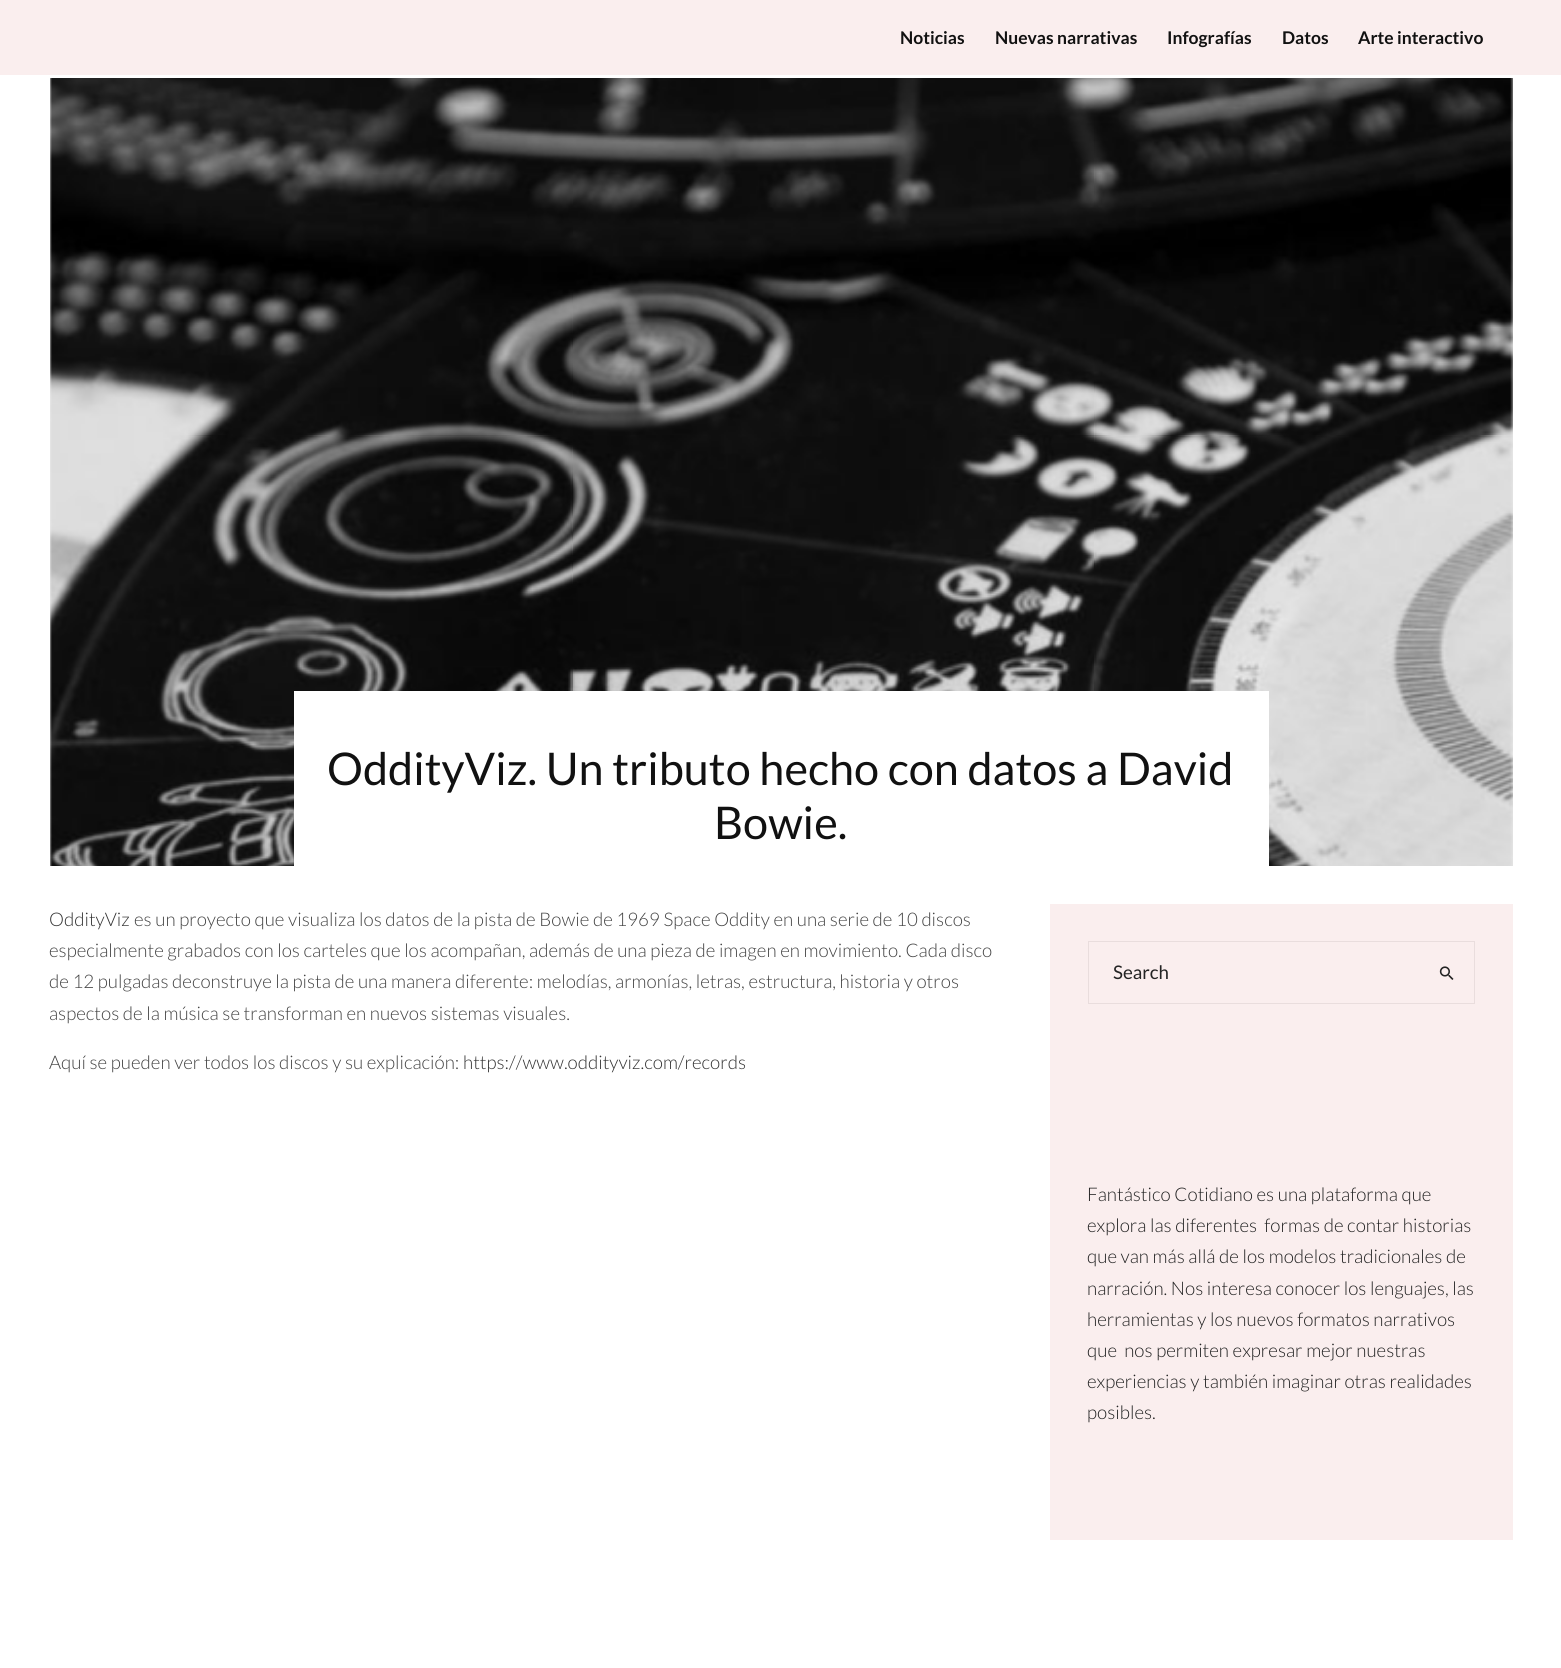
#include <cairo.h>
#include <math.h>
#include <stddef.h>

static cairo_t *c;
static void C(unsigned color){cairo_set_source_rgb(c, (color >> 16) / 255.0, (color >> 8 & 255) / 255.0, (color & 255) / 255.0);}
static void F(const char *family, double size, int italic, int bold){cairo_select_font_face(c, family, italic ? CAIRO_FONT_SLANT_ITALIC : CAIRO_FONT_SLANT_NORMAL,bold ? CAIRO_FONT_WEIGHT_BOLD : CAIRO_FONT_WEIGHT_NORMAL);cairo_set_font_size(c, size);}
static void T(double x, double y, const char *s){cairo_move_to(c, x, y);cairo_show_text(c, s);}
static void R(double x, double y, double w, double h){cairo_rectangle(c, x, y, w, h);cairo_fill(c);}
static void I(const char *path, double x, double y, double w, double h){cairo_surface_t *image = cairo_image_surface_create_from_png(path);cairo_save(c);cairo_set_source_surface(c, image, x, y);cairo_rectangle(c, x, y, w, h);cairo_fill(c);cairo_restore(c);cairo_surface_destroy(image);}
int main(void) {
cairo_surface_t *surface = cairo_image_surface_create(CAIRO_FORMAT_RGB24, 1561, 1668);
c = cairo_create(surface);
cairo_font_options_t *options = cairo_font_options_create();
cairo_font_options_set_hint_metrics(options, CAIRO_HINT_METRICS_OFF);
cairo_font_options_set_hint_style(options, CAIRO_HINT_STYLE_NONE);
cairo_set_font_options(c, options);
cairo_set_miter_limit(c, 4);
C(0xffffff);
cairo_paint(c);
C(0xfaeeee);
R(0,0,1561,75);
F("Lato",17.5,0,1);
C(0x111111);
T(900,44,"Noticias");
T(995,44,"Nuevas narrativas");
T(1167,44,"Infografías");
T(1282,44,"Datos");
T(1358,44,"Arte interactivo");
C(0xeeeeee);
R(50,79,1463,787);
I("1.png",50,78,1463,788);
C(0xffffff);
R(294,691,975,175);
F("Lato",45,0,0);
C(0x111111);
T(327,785,"OddityViz. Un tributo hecho con datos a David");
T(714,839,"Bowie.");
F("Lato Light",18.75,0,0);
C(0x333333);
T(49,926,"OddityViz");
C(0x444444);
T(134,926,"es un proyecto que visualiza los datos de la pista de Bowie de 1969 Space Oddity en una serie de 10 discos");
T(49,957,"especialmente grabados con los carteles que los acompañan, además de una pieza de imagen en movimiento. Cada disco");
T(49,988,"de 12 pulgadas deconstruye la pista de una manera diferente: melodías, armonías, letras, estructura, historia y otros");
T(49,1020,"aspectos de la música se transforman en nuevos sistemas visuales.");
T(49,1069,"Aquí se pueden ver todos los discos y su explicación:");
C(0x333333);
T(463,1069,"https://www.oddityviz.com/records");
C(0xfaeeee);
R(1050,904,463,636);
cairo_rectangle(c,1088.5,941.5,386,62);
C(0xe9dddd);
cairo_set_line_width(c,1);
cairo_stroke(c);
F("Lato",18.75,0,0);
C(0x232323);
T(1113,979,"Search");
I("2.png",1439,966,15,14);
F("Lato Light",18.75,0,0);
T(1087,1201,"Fantástico Cotidiano es una plataforma que");
T(1087,1232,"explora las diferentes  formas de contar historias");
T(1087,1263,"que van más allá de los modelos tradicionales de");
T(1087,1295,"narración. Nos interesa conocer los lenguajes, las");
T(1087,1326,"herramientas y los nuevos formatos narrativos");
T(1087,1357,"que  nos permiten expresar mejor nuestras");
T(1087,1388,"experiencias y también imaginar otras realidades");
T(1087,1419,"posibles.");
cairo_surface_write_to_png(surface, "o.png");
cairo_font_options_destroy(options);
cairo_destroy(c);
cairo_surface_destroy(surface);
return 0;
}
